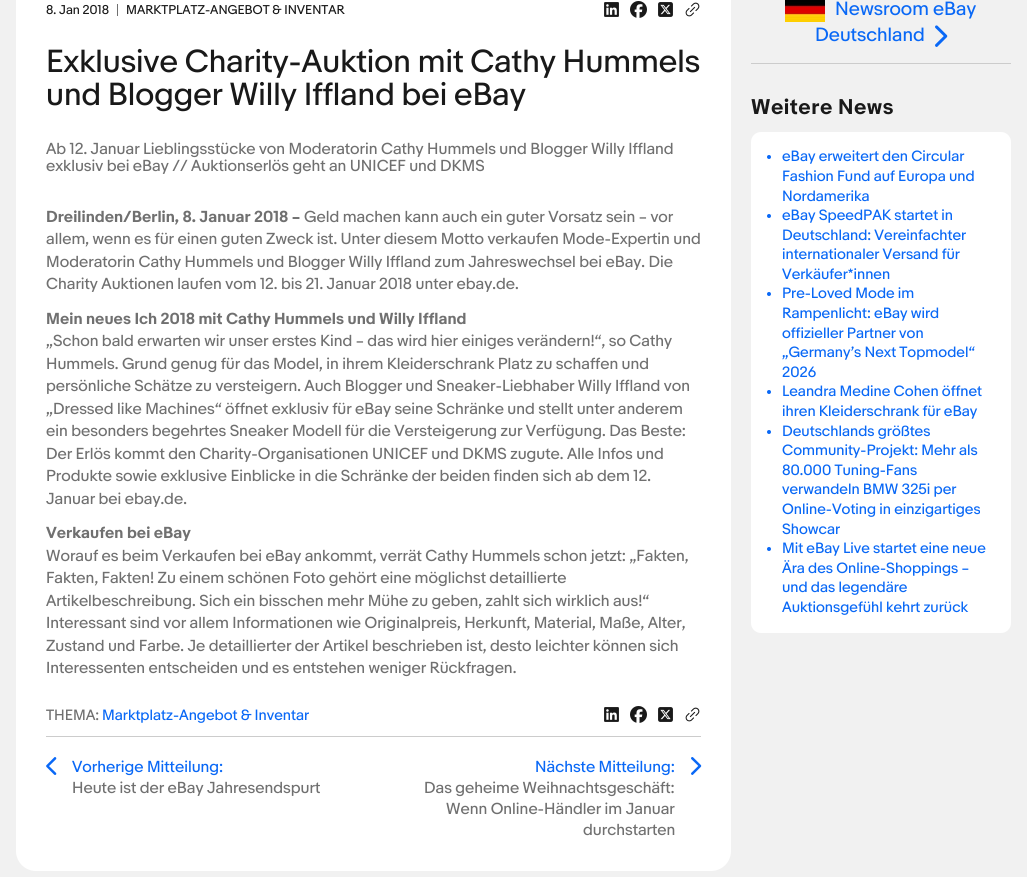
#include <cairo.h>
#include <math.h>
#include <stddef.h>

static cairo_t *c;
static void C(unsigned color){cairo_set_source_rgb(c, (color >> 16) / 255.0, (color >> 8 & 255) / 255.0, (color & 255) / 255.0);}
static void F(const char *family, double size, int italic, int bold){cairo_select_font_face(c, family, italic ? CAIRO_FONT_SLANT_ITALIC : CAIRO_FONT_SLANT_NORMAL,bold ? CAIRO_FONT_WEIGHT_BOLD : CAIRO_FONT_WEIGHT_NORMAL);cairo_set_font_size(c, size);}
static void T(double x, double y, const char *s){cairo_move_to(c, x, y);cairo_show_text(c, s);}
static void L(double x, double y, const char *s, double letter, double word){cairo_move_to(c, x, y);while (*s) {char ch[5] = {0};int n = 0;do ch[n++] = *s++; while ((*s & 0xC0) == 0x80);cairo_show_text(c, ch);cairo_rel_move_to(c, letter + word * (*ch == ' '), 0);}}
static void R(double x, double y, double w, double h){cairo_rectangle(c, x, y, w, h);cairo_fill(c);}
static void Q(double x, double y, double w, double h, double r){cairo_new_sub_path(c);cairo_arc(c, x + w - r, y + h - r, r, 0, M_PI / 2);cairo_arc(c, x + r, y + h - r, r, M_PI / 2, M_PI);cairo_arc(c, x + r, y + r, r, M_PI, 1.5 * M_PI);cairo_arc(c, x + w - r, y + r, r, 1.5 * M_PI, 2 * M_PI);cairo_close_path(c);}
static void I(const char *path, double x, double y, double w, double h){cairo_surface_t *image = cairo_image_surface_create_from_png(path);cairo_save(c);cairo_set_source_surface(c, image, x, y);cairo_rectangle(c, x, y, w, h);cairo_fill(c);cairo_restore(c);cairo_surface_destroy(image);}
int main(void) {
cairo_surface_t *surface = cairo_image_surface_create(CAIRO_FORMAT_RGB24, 1027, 877);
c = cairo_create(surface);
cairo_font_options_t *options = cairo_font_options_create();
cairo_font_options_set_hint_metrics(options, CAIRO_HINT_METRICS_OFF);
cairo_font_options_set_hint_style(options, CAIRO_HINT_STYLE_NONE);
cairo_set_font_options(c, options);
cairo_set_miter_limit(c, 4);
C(0xf1f1f1);
cairo_paint(c);
C(0xffffff);
Q(16,-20,715,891,20);
cairo_fill(c);
F("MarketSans",12,0,0);
C(0x191919);
T(46,14,"8. Jan 2018");
C(0x707070);
R(117,4,1,12);
C(0x191919);
T(126,14,"MARKTPLATZ-ANGEBOT & INVENTAR");
I("1.png",604,2,15,15);
I("2.png",630,1,17,17);
I("3.png",658,2,15,15);
I("4.png",685,2,15,15);
F("MarketSans",30,0,0);
T(46,72,"Exklusive Charity-Auktion mit Cathy Hummels");
T(46,105,"und Blogger Willy Iffland bei eBay");
F("MarketSans",15,0,0);
C(0x707070);
T(46,154,"Ab 12. Januar Lieblingsstücke von Moderatorin Cathy Hummels und Blogger Willy Iffland");
T(46,171,"exklusiv bei eBay // Auktionserlös geht an UNICEF und DKMS");
F("MarketSans",15,0,1);
T(46,222,"Dreilinden/Berlin, 8. Januar 2018 –");
F("MarketSans",15,0,0);
T(304,222,"Geld machen kann auch ein guter Vorsatz sein – vor");
T(46,244,"allem, wenn es für einen guten Zweck ist. Unter diesem Motto verkaufen Mode-Expertin und");
T(46,267,"Moderatorin Cathy Hummels und Blogger Willy Iffland zum Jahreswechsel bei eBay. Die");
T(46,289,"Charity Auktionen laufen vom 12. bis 21. Januar 2018 unter ebay.de.");
F("MarketSans",15,0,1);
T(46,324,"Mein neues Ich 2018 mit Cathy Hummels und Willy Iffland");
F("MarketSans",15,0,0);
T(46,346,"„Schon bald erwarten wir unser erstes Kind – das wird hier einiges verändern!“, so Cathy");
T(46,369,"Hummels. Grund genug für das Model, in ihrem Kleiderschrank Platz zu schaffen und");
T(46,391,"persönliche Schätze zu versteigern. Auch Blogger und Sneaker-Liebhaber Willy Iffland von");
T(46,414,"„Dressed like Machines“ öffnet exklusiv für eBay seine Schränke und stellt unter anderem");
T(46,436,"ein besonders begehrtes Sneaker Modell für die Versteigerung zur Verfügung. Das Beste:");
T(46,459,"Der Erlös kommt den Charity-Organisationen UNICEF und DKMS zugute. Alle Infos und");
T(46,481,"Produkte sowie exklusive Einblicke in die Schränke der beiden finden sich ab dem 12.");
T(46,504,"Januar bei ebay.de.");
F("MarketSans",15,0,1);
T(46,538,"Verkaufen bei eBay");
F("MarketSans",15,0,0);
T(46,561,"Worauf es beim Verkaufen bei eBay ankommt, verrät Cathy Hummels schon jetzt: „Fakten,");
T(46,583,"Fakten, Fakten! Zu einem schönen Foto gehört eine möglichst detaillierte");
T(46,606,"Artikelbeschreibung. Sich ein bisschen mehr Mühe zu geben, zahlt sich wirklich aus!“");
T(46,628,"Interessant sind vor allem Informationen wie Originalpreis, Herkunft, Material, Maße, Alter,");
T(46,651,"Zustand und Farbe. Je detaillierter der Artikel beschrieben ist, desto leichter können sich");
T(46,673,"Interessenten entscheiden und es entstehen weniger Rückfragen.");
F("MarketSans",14,0,0);
T(46,720,"THEMA:");
C(0x0968f6);
T(102,720,"Marktplatz-Angebot & Inventar");
I("1.png",604,707,15,15);
I("2.png",630,706,17,17);
I("3.png",658,707,15,15);
I("4.png",685,707,15,15);
C(0xcccccc);
R(46,736,655,1);
I("5.png",46,757,11,18);
F("MarketSans",15,0,0);
C(0x0968f6);
T(72,772,"Vorherige Mitteilung:");
C(0x707070);
T(72,793,"Heute ist der eBay Jahresendspurt");
C(0x0968f6);
T(535,772,"Nächste Mitteilung:");
I("6.png",691,757,11,18);
C(0x707070);
T(424,793,"Das geheime Weihnachtsgeschäft:");
T(446,814,"Wenn Online-Händler im Januar");
T(583,835,"durchstarten");
C(0xcccccc);
R(751,63,260,1);
I("7.png",785,0,40,22);
F("MarketSans",18,0,0);
C(0x0968f6);
T(835,15,"Newsroom eBay");
T(815,41,"Deutschland");
I("8.png",935,25,13,22);
F("MarketSans",20,0,1);
C(0x191919);
L(751,114,"Weitere News",.5,0);
C(0xffffff);
Q(751,132,260,501,10);
cairo_fill(c);
C(0x0968f6);
cairo_arc(c,769,157,2,0,2 * M_PI);
cairo_fill(c);
F("MarketSans",14,0,0);
T(782,161,"eBay erweitert den Circular");
T(782,181,"Fashion Fund auf Europa und");
T(782,201,"Nordamerika");
cairo_new_path(c);
cairo_arc(c,769,216,2,0,2 * M_PI);
cairo_fill(c);
T(782,220,"eBay SpeedPAK startet in");
T(782,240,"Deutschland: Vereinfachter");
T(782,259,"internationaler Versand für");
T(782,279,"Verkäufer*innen");
cairo_new_path(c);
cairo_arc(c,769,294,2,0,2 * M_PI);
cairo_fill(c);
T(782,298,"Pre-Loved Mode im");
T(782,318,"Rampenlicht: eBay wird");
T(782,338,"offizieller Partner von");
T(782,357,"„Germany’s Next Topmodel“");
T(782,377,"2026");
cairo_new_path(c);
cairo_arc(c,769,392,2,0,2 * M_PI);
cairo_fill(c);
T(782,396,"Leandra Medine Cohen öffnet");
T(782,416,"ihren Kleiderschrank für eBay");
cairo_new_path(c);
cairo_arc(c,769,432,2,0,2 * M_PI);
cairo_fill(c);
T(782,436,"Deutschlands größtes");
T(782,455,"Community-Projekt: Mehr als");
T(782,475,"80.000 Tuning-Fans");
T(782,494,"verwandeln BMW 325i per");
T(782,514,"Online-Voting in einzigartiges");
T(782,534,"Showcar");
cairo_new_path(c);
cairo_arc(c,769,549,2,0,2 * M_PI);
cairo_fill(c);
T(782,553,"Mit eBay Live startet eine neue");
T(782,573,"Ära des Online-Shoppings –");
T(782,592,"und das legendäre");
T(782,612,"Auktionsgefühl kehrt zurück");
cairo_surface_write_to_png(surface, "o.png");
cairo_font_options_destroy(options);
cairo_destroy(c);
cairo_surface_destroy(surface);
return 0;
}
